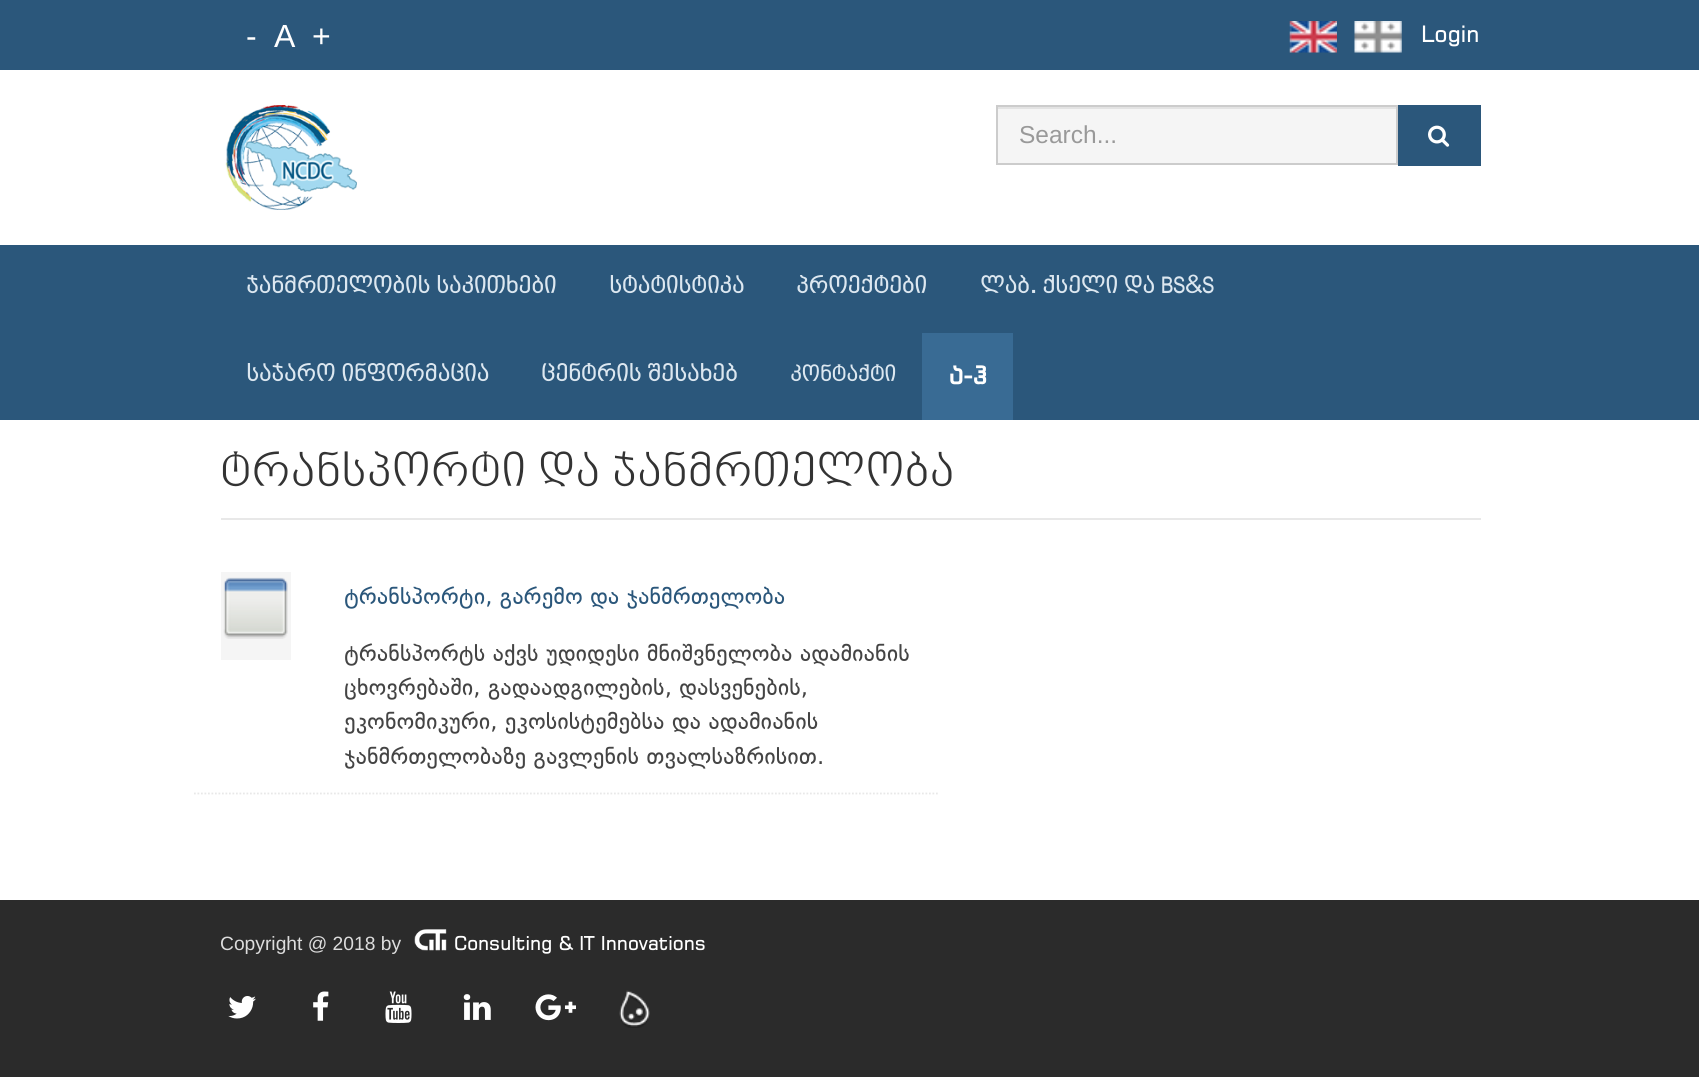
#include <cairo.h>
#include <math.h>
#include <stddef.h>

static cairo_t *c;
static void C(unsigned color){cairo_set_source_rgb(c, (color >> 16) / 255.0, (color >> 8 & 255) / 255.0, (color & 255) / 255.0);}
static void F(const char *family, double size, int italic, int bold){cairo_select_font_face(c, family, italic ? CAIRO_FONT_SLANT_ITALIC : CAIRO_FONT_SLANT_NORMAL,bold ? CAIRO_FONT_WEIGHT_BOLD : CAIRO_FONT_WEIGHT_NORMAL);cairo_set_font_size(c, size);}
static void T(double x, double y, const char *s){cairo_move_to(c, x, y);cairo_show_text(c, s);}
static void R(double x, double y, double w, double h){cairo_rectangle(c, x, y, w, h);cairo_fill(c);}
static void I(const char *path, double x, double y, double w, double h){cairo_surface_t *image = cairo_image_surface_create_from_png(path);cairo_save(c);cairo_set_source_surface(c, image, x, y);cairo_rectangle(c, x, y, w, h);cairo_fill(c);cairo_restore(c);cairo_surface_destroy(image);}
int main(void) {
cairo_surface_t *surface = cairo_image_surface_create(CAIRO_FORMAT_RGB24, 1699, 1077);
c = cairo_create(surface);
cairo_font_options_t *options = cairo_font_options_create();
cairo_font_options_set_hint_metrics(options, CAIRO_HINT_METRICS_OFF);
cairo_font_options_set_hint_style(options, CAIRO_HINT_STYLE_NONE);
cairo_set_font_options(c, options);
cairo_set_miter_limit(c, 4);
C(0xffffff);
cairo_paint(c);
C(0x2b577b);
R(0,0,1699,70);
F("Liberation Sans",32,0,0);
C(0xffffff);
T(246,47,"-");
T(274,47,"A");
T(312,47,"+");
I("1.png",1289,21,48,32);
I("2.png",1354,21,48,32);
F("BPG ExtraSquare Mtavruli",22.75,0,0);
T(1421,42,"Login");
I("3.png",225,105,132,105);
C(0xf5f5f5);
R(998,109,398,54);
C(0xe3e3e3);
R(998,107,399,2);
cairo_rectangle(c,997,106,400,58);
C(0xcccccc);
cairo_stroke(c);
F("Liberation Sans",24.5,0,0);
C(0x999999);
T(1019,143,"Search...");
C(0x2b577b);
R(1398,105,83,61);
I("4.png",1428,125,22,22);
R(0,245,1699,175);
F("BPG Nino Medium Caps",24.5,0,1);
C(0xdce7f0);
T(246,293,"ჯანმრთელობის საკითხები");
T(609,293,"სტატისტიკა");
T(796,293,"პროექტები");
T(980,293,"ლაბ. ქსელი და BS&S");
T(246,381,"საჯარო ინფორმაცია");
T(541,381,"ცენტრის შესახებ");
F("BPG Nino Medium Caps",22.75,0,1);
T(790,381,"კონტაქტი");
C(0x396b94);
R(922,333,91,87);
F("BPG ExtraSquare Mtavruli",24.5,0,1);
C(0xffffff);
T(949,384,"ა-ჰ");
C(0xe8e8e8);
R(221,518,1260,2);
F("BPG Nino Medium Caps Medium",49,0,0);
C(0x333333);
T(220,486,"ტრანსპორტი და ჯანმრთელობა");
cairo_new_path(c);
cairo_move_to(c,194,793.5);
cairo_line_to(c,938,793.5);
C(0xe8e8e8);
cairo_set_line_width(c,1.8);
cairo_set_dash(c,(double[]){1.75,1.75},2,0);
cairo_stroke(c);
C(0xf5f5f5);
R(221,572,70,88);
I("5.png",223,577,65,62);
F("DejaVu Sans",22.75,0,0);
C(0x2b577b);
T(344,604,"ტრანსპორტი, გარემო და ჯანმრთელობა");
C(0x444444);
T(344,661,"ტრანსპორტს აქვს უდიდესი მნიშვნელობა ადამიანის");
T(344,695,"ცხოვრებაში, გადაადგილების, დასვენების,");
T(344,729,"ეკონომიკური, ეკოსისტემებსა და ადამიანის");
T(344,764,"ჯანმრთელობაზე გავლენის თვალსაზრისით.");
C(0x2b2b2b);
R(0,900,1699,177);
F("Liberation Sans",19.25,0,0);
C(0xdcdcdc);
T(220,950,"Copyright @ 2018 by");
I("6.png",414,929,33,22);
F("BPG ExtraSquare Mtavruli",19.25,0,0);
C(0xffffff);
T(454,950,"Consulting & IT Innovations");
I("7.png",228,996,28,23);
I("8.png",313,991,16,30);
I("9.png",385,991,27,32);
I("10.png",463,994,28,26);
I("11.png",535,994,41,27);
I("12.png",619,990,31,38);
cairo_surface_write_to_png(surface, "o.png");
cairo_font_options_destroy(options);
cairo_destroy(c);
cairo_surface_destroy(surface);
return 0;
}
